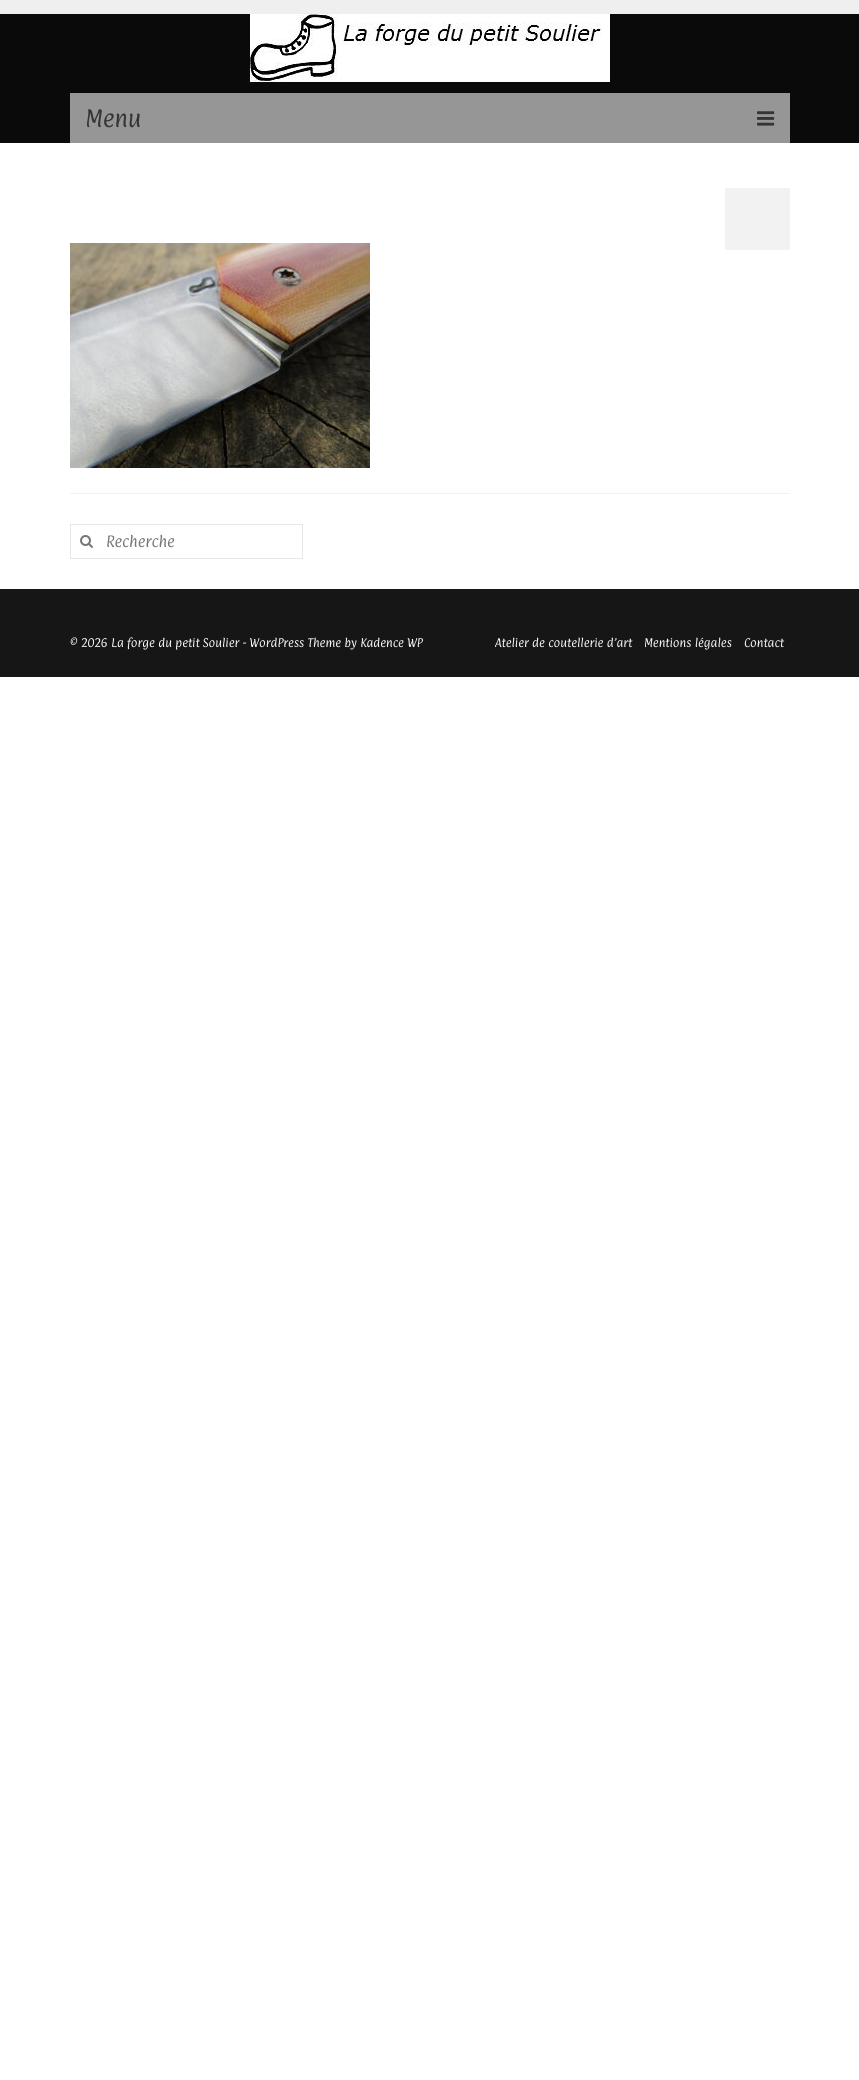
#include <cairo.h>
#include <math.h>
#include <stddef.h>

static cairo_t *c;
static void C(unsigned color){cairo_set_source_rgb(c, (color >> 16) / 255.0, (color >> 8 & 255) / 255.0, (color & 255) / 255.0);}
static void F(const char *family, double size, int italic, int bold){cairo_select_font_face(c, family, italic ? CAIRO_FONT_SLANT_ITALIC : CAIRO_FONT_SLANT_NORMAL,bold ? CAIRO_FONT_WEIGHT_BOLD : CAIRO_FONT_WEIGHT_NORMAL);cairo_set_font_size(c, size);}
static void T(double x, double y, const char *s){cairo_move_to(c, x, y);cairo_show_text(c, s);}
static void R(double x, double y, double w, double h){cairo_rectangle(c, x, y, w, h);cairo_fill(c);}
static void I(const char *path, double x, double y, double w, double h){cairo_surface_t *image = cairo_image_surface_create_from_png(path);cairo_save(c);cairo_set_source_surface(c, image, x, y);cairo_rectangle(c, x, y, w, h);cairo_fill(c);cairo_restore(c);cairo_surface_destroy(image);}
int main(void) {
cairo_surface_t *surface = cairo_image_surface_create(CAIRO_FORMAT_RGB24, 859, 2080);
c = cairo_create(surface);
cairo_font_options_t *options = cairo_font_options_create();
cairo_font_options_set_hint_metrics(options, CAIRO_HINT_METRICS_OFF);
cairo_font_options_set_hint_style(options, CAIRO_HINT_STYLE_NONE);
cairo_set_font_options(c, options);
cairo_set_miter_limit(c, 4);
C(0xffffff);
cairo_paint(c);
C(0x0a0a0a);
R(0,14,859,129);
C(0xefefef);
R(0,0,859,14);
I("1.png",250,14,360,68);
C(0x969696);
R(70,93,720,50);
F("Paprika",20,0,0);
C(0x353535);
T(85,127,"Menu");
I("2.png",757,111,18,15);
C(0xf2f2f2);
R(725,188,65,62);
I("3.png",70,243,300,225);
R(70,493,720,1);
cairo_rectangle(c,70.5,524.5,232,34);
C(0xe7e7e7);
cairo_set_line_width(c,1);
cairo_stroke(c);
I("4.png",80,535,13,13);
F("Paprika",13,0,0);
C(0x757575);
T(106,547,"Recherche");
C(0x161616);
R(0,589,859,88);
F("Paprika",10,0,0);
C(0xf9f9f9);
T(70,647,"© 2026 La forge du petit Soulier - WordPress Theme by Kadence WP");
T(495,647,"Atelier de coutellerie d’art");
T(644,647,"Mentions légales");
T(744,647,"Contact");
cairo_surface_write_to_png(surface, "o.png");
cairo_font_options_destroy(options);
cairo_destroy(c);
cairo_surface_destroy(surface);
return 0;
}
